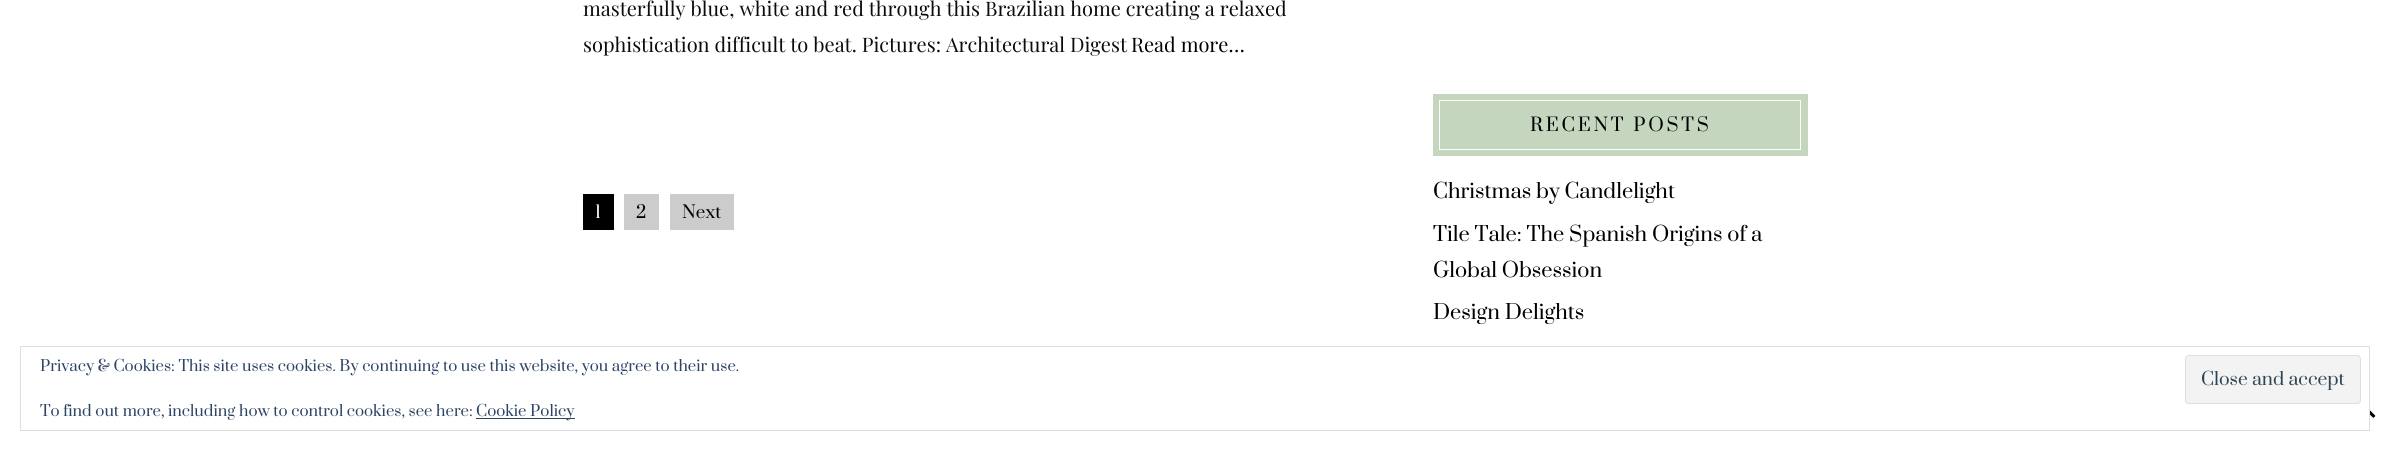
#include <cairo.h>
#include <math.h>
#include <stddef.h>

static cairo_t *c;
static void C(unsigned color){cairo_set_source_rgb(c, (color >> 16) / 255.0, (color >> 8 & 255) / 255.0, (color & 255) / 255.0);}
static void F(const char *family, double size, int italic, int bold){cairo_select_font_face(c, family, italic ? CAIRO_FONT_SLANT_ITALIC : CAIRO_FONT_SLANT_NORMAL,bold ? CAIRO_FONT_WEIGHT_BOLD : CAIRO_FONT_WEIGHT_NORMAL);cairo_set_font_size(c, size);}
static void T(double x, double y, const char *s){cairo_move_to(c, x, y);cairo_show_text(c, s);}
static void L(double x, double y, const char *s, double letter, double word){cairo_move_to(c, x, y);while (*s) {char ch[5] = {0};int n = 0;do ch[n++] = *s++; while ((*s & 0xC0) == 0x80);cairo_show_text(c, ch);cairo_rel_move_to(c, letter + word * (*ch == ' '), 0);}}
static void R(double x, double y, double w, double h){cairo_rectangle(c, x, y, w, h);cairo_fill(c);}
static void Q(double x, double y, double w, double h, double r){cairo_new_sub_path(c);cairo_arc(c, x + w - r, y + h - r, r, 0, M_PI / 2);cairo_arc(c, x + r, y + h - r, r, M_PI / 2, M_PI);cairo_arc(c, x + r, y + r, r, M_PI, 1.5 * M_PI);cairo_arc(c, x + w - r, y + r, r, 1.5 * M_PI, 2 * M_PI);cairo_close_path(c);}
static void I(const char *path, double x, double y, double w, double h){cairo_surface_t *image = cairo_image_surface_create_from_png(path);cairo_save(c);cairo_set_source_surface(c, image, x, y);cairo_rectangle(c, x, y, w, h);cairo_fill(c);cairo_restore(c);cairo_surface_destroy(image);}
int main(void) {
cairo_surface_t *surface = cairo_image_surface_create(CAIRO_FORMAT_RGB24, 2389, 451);
c = cairo_create(surface);
cairo_font_options_t *options = cairo_font_options_create();
cairo_font_options_set_hint_metrics(options, CAIRO_HINT_METRICS_OFF);
cairo_font_options_set_hint_style(options, CAIRO_HINT_STYLE_NONE);
cairo_set_font_options(c, options);
cairo_set_miter_limit(c, 4);
C(0xffffff);
cairo_paint(c);
F("Playfair Display",20,0,0);
C(0x0c0c0c);
T(583,16,"masterfully blue, white and red through this Brazilian home creating a relaxed");
T(583,52,"sophistication difficult to beat. Pictures: Architectural Digest");
C(0x000000);
T(1131,52,"Read more…");
R(583,194,31,36);
F("Prata",17,0,0);
C(0xffffff);
T(595,218,"1");
C(0xcccccc);
R(624,194,35,36);
C(0x000000);
T(636,218,"2");
C(0xcccccc);
R(670,194,64,36);
C(0x000000);
T(682,218,"Next");
C(0xc4d6be);
R(1433,94,375,62);
cairo_rectangle(c,1439.5,100.5,361,49);
C(0xffffff);
cairo_set_line_width(c,1);
cairo_stroke(c);
F("Prata",18,0,0);
C(0x000000);
L(1530,131,"RECENT POSTS",2.75,0);
F("Prata",20,0,0);
T(1433,198,"Christmas by Candlelight");
T(1433,241,"Tile Tale: The Spanish Origins of a");
T(1433,277,"Global Obsession");
T(1433,319,"Design Delights");
cairo_rectangle(c,20.5,346.5,2349,84);
C(0xdedede);
cairo_stroke(c);
F("Prata",15,0,0);
C(0x2e4467);
T(40,371,"Privacy & Cookies: This site uses cookies. By continuing to use this website, you agree to their use.");
C(0xf3f3f3);
Q(2185.5,355.5,175,48,3.5);
cairo_fill_preserve(c);
C(0xdedede);
cairo_stroke(c);
F("Prata",17.5,0,0);
C(0x2e4453);
T(2201,385,"Close and accept");
F("Prata",15,0,0);
C(0x2e4467);
T(40,416,"To find out more, including how to control cookies, see here:");
R(476,418,99,1);
T(476,416,"Cookie Policy");
I("1.png",2370,410,6,8);
cairo_surface_write_to_png(surface, "o.png");
cairo_font_options_destroy(options);
cairo_destroy(c);
cairo_surface_destroy(surface);
return 0;
}
